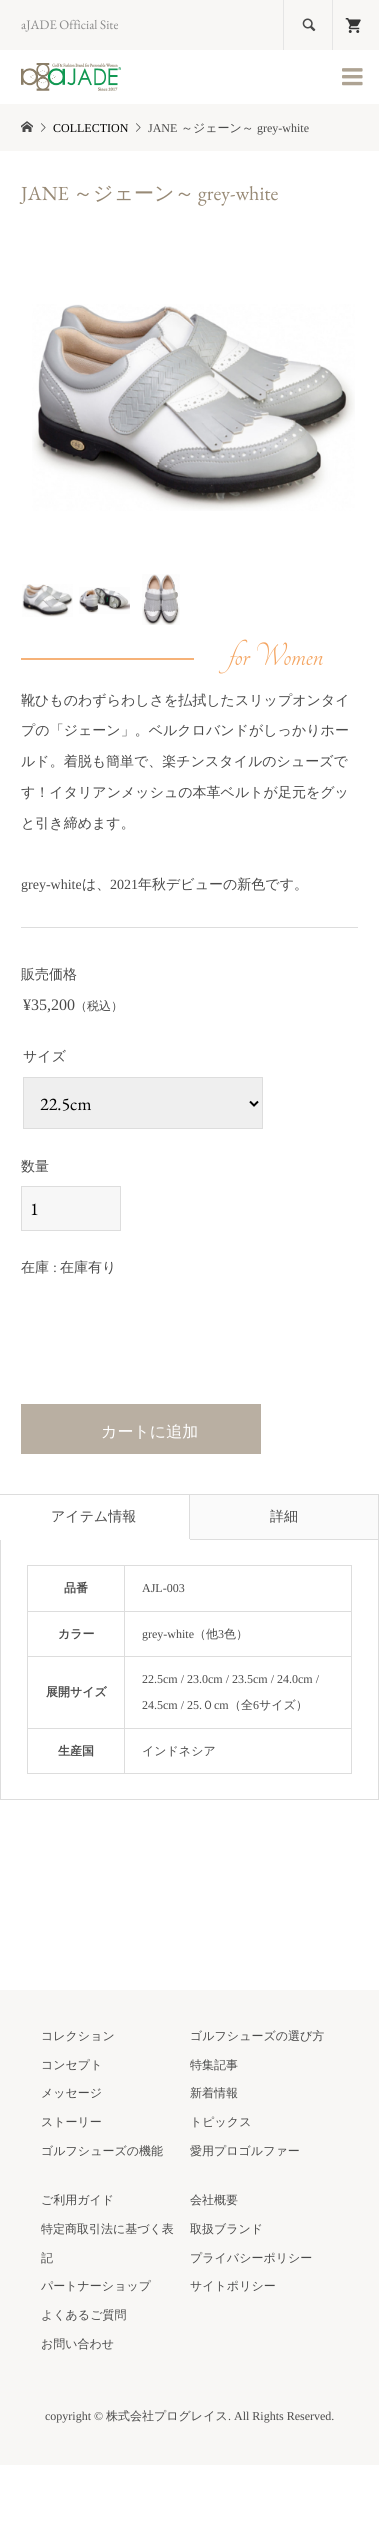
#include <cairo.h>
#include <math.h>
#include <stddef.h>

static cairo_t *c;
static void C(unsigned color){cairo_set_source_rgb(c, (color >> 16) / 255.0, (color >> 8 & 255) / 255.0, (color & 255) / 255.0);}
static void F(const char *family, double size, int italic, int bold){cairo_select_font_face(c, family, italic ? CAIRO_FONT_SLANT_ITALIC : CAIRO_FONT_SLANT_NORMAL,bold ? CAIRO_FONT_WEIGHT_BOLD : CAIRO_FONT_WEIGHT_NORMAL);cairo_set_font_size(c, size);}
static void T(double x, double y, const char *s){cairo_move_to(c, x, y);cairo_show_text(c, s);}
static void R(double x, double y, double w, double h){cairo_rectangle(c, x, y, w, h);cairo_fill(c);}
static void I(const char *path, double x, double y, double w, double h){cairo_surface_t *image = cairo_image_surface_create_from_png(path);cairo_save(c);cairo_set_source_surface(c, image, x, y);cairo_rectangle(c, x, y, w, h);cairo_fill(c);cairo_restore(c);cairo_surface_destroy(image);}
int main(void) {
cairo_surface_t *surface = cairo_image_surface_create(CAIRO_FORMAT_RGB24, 379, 2548);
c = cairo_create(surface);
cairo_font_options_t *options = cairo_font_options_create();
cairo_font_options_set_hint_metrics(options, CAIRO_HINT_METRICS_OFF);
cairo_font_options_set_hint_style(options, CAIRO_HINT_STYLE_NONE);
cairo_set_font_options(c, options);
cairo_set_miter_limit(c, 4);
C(0xffffff);
cairo_paint(c);
C(0xf8f7f5);
R(0,0,379,50);
F("EB Garamond",13,0,0);
C(0x8b8b8b);
T(21,29,"aJADE Official Site");
C(0xe5e5e5);
R(283,0,1,50);
I("1.png",302,18,14,14);
R(332,0,1,50);
I("2.png",345,18,16,15);
I("3.png",21,63,100,28);
I("4.png",342,68,21,18);
C(0xf8f7f5);
R(0,104,379,47);
I("5.png",21,121,12,11);
I("6.png",41,123,5,9);
F("Liberation Serif",12,0,0);
C(0x000000);
T(53,132,"COLLECTION");
I("6.png",136,123,5,9);
C(0x4a4a4a);
T(148,132,"JANE");
F("WenQuanYi Zen Hei Medium",12,0,0);
T(181,132,"～ジェーン～");
F("Liberation Serif",12,0,0);
T(257,132,"grey-white");
F("EB Garamond",20,0,0);
C(0x988a76);
T(21,200,"JANE");
F("WenQuanYi Zen Hei Medium",20,0,0);
T(73,200,"～ジェーン～");
F("EB Garamond",20,0,0);
T(198,200,"grey-white");
I("7.png",32,304,323,207);
I("8.png",22,584,51,33);
I("9.png",79,587,51,27);
I("10.png",142,574,38,51);
C(0xf6b278);
R(21,658,173,2);
F("Tangerine",35,0,0);
C(0xf4a460);
T(229,665,"for Women");
F("WenQuanYi Zen Hei Medium",14,0,0);
C(0x4a4a4a);
T(21,705,"靴ひものわずらわしさを払拭したスリップオンタイ");
T(21,735,"プの「ジェーン」。ベルクロバンドがしっかりホー");
T(21,766,"ルド。着脱も簡単で、楽チンスタイルのシューズで");
T(21,797,"す！イタリアンメッシュの本革ベルトが足元をグッ");
T(21,828,"と引き締めます。");
F("Liberation Serif",14,0,0);
T(21,889,"grey-white");
F("WenQuanYi Zen Hei Medium",14,0,0);
T(82,889,"は、");
F("Liberation Serif",14,0,0);
T(110,889,"2021");
F("WenQuanYi Zen Hei Medium",14,0,0);
T(138,889,"年秋デビューの新色です。");
C(0xdddddd);
R(21,927,337,1);
C(0x4a4a4a);
T(21,979,"販売価格");
F("Liberation Serif",16,0,0);
T(23,1010,"¥35,200");
F("WenQuanYi Zen Hei Medium",12,0,0);
T(75,1010,"（税込）");
F("WenQuanYi Zen Hei Medium",14,0,0);
T(23,1061,"サイズ");
C(0xefefef);
cairo_rectangle(c,23.5,1077.5,239,51);
cairo_fill_preserve(c);
C(0xdddddd);
cairo_set_line_width(c,1);
cairo_stroke(c);
cairo_new_path(c);
cairo_move_to(c,250,1101.5);
cairo_line_to(c,254,1105.5);
cairo_line_to(c,258,1101.5);
C(0x000000);
cairo_set_line_width(c,2);
cairo_stroke(c);
F("EB Garamond",18,0,0);
T(40,1110,"22.5cm");
F("WenQuanYi Zen Hei Medium",14,0,0);
C(0x4a4a4a);
T(21,1171,"数量");
C(0xf7f7f7);
cairo_rectangle(c,21.5,1186.5,99,44);
cairo_fill_preserve(c);
C(0xdddddd);
cairo_set_line_width(c,1);
cairo_stroke(c);
F("EB Garamond",18,0,0);
C(0x000000);
T(30,1215,"1");
F("WenQuanYi Zen Hei Medium",14,0,0);
C(0x4a4a4a);
T(21,1272,"在庫");
F("Liberation Serif",14,0,0);
T(53,1272,":");
F("WenQuanYi Zen Hei Medium",14,0,0);
T(60,1272,"在庫有り");
C(0xb9afa2);
R(21,1404,240,50);
F("WenQuanYi Zen Hei Medium",16,0,0);
C(0xffffff);
T(101,1437,"カートに追加");
C(0xdddddd);
R(0,1494,379,1);
cairo_rectangle(c,.5,1539.5,378,260);
cairo_stroke(c);
R(189,1494,1,46);
C(0xffffff);
R(0,1539,190,1);
F("WenQuanYi Zen Hei Medium",14,0,0);
C(0x4a4a4a);
T(51,1521,"アイテム情報");
C(0xfafafa);
R(190,1495,188,44);
C(0xdddddd);
R(378,1494,1,46);
C(0x4a4a4a);
T(270,1521,"詳細");
C(0xdddddd);
R(124,1565,228,1);
R(124,1611,228,1);
R(124,1656,228,1);
R(124,1728,228,1);
R(351,1728,1,46);
R(124,1773,228,1);
R(124,1728,1,46);
R(27,1728,98,1);
R(124,1656,1,73);
R(27,1656,98,1);
R(124,1611,1,46);
R(27,1611,98,1);
R(124,1565,1,47);
R(27,1565,98,1);
R(27,1773,98,1);
R(27,1728,1,46);
R(27,1656,1,73);
R(27,1611,1,46);
R(27,1565,1,47);
F("WenQuanYi Zen Hei",12,0,1);
C(0x4a4a4a);
T(64,1592,"品番");
C(0xdddddd);
R(351,1656,1,73);
R(351,1611,1,46);
R(351,1565,1,47);
F("Liberation Serif",12,0,0);
C(0x4a4a4a);
T(142,1592,"AJL-003");
F("WenQuanYi Zen Hei",12,0,1);
T(58,1638,"カラー");
F("Liberation Serif",12,0,0);
T(142,1638,"grey-white");
F("WenQuanYi Zen Hei Medium",12,0,0);
T(194,1638,"（他");
F("Liberation Serif",12,0,0);
T(218,1638,"3");
F("WenQuanYi Zen Hei Medium",12,0,0);
T(224,1638,"色）");
F("WenQuanYi Zen Hei",12,0,1);
T(46,1696,"展開サイズ");
F("Liberation Serif",12,0,0);
T(142,1683,"22.5cm / 23.0cm / 23.5cm / 24.0cm /");
T(142,1709,"24.5cm / 25.");
F("WenQuanYi Zen Hei Medium",12,0,0);
T(202,1709,"０");
F("Liberation Serif",12,0,0);
T(214,1709,"cm");
F("WenQuanYi Zen Hei Medium",12,0,0);
T(229,1709,"（全");
F("Liberation Serif",12,0,0);
T(253,1709,"6");
F("WenQuanYi Zen Hei Medium",12,0,0);
T(259,1709,"サイズ）");
F("WenQuanYi Zen Hei",12,0,1);
T(58,1755,"生産国");
F("WenQuanYi Zen Hei Medium",12,0,0);
T(142,1755,"インドネシア");
C(0xf8f7f5);
R(0,1990,379,475);
C(0x4a4a4a);
T(41,2040,"コレクション");
T(41,2069,"コンセプト");
T(41,2097,"メッセージ");
T(41,2126,"ストーリー");
T(41,2155,"ゴルフシューズの機能");
T(190,2040,"ゴルフシューズの選び方");
T(190,2069,"特集記事");
T(190,2097,"新着情報");
T(190,2126,"トピックス");
T(190,2155,"愛用プロゴルファー");
T(41,2204,"ご利用ガイド");
T(41,2233,"特定商取引法に基づく表");
T(41,2262,"記");
T(41,2290,"パートナーショップ");
T(41,2319,"よくあるご質問");
T(41,2348,"お問い合わせ");
T(190,2204,"会社概要");
T(190,2233,"取扱ブランド");
T(190,2262,"プライバシーポリシー");
T(190,2290,"サイトポリシー");
F("Liberation Serif",12,0,0);
T(45,2420,"copyright ©");
F("WenQuanYi Zen Hei Medium",12,0,0);
T(106,2420,"株式会社プログレイス");
F("Liberation Serif",12,0,0);
T(228,2420,". All Rights Reserved.");
cairo_surface_write_to_png(surface, "o.png");
cairo_font_options_destroy(options);
cairo_destroy(c);
cairo_surface_destroy(surface);
return 0;
}
